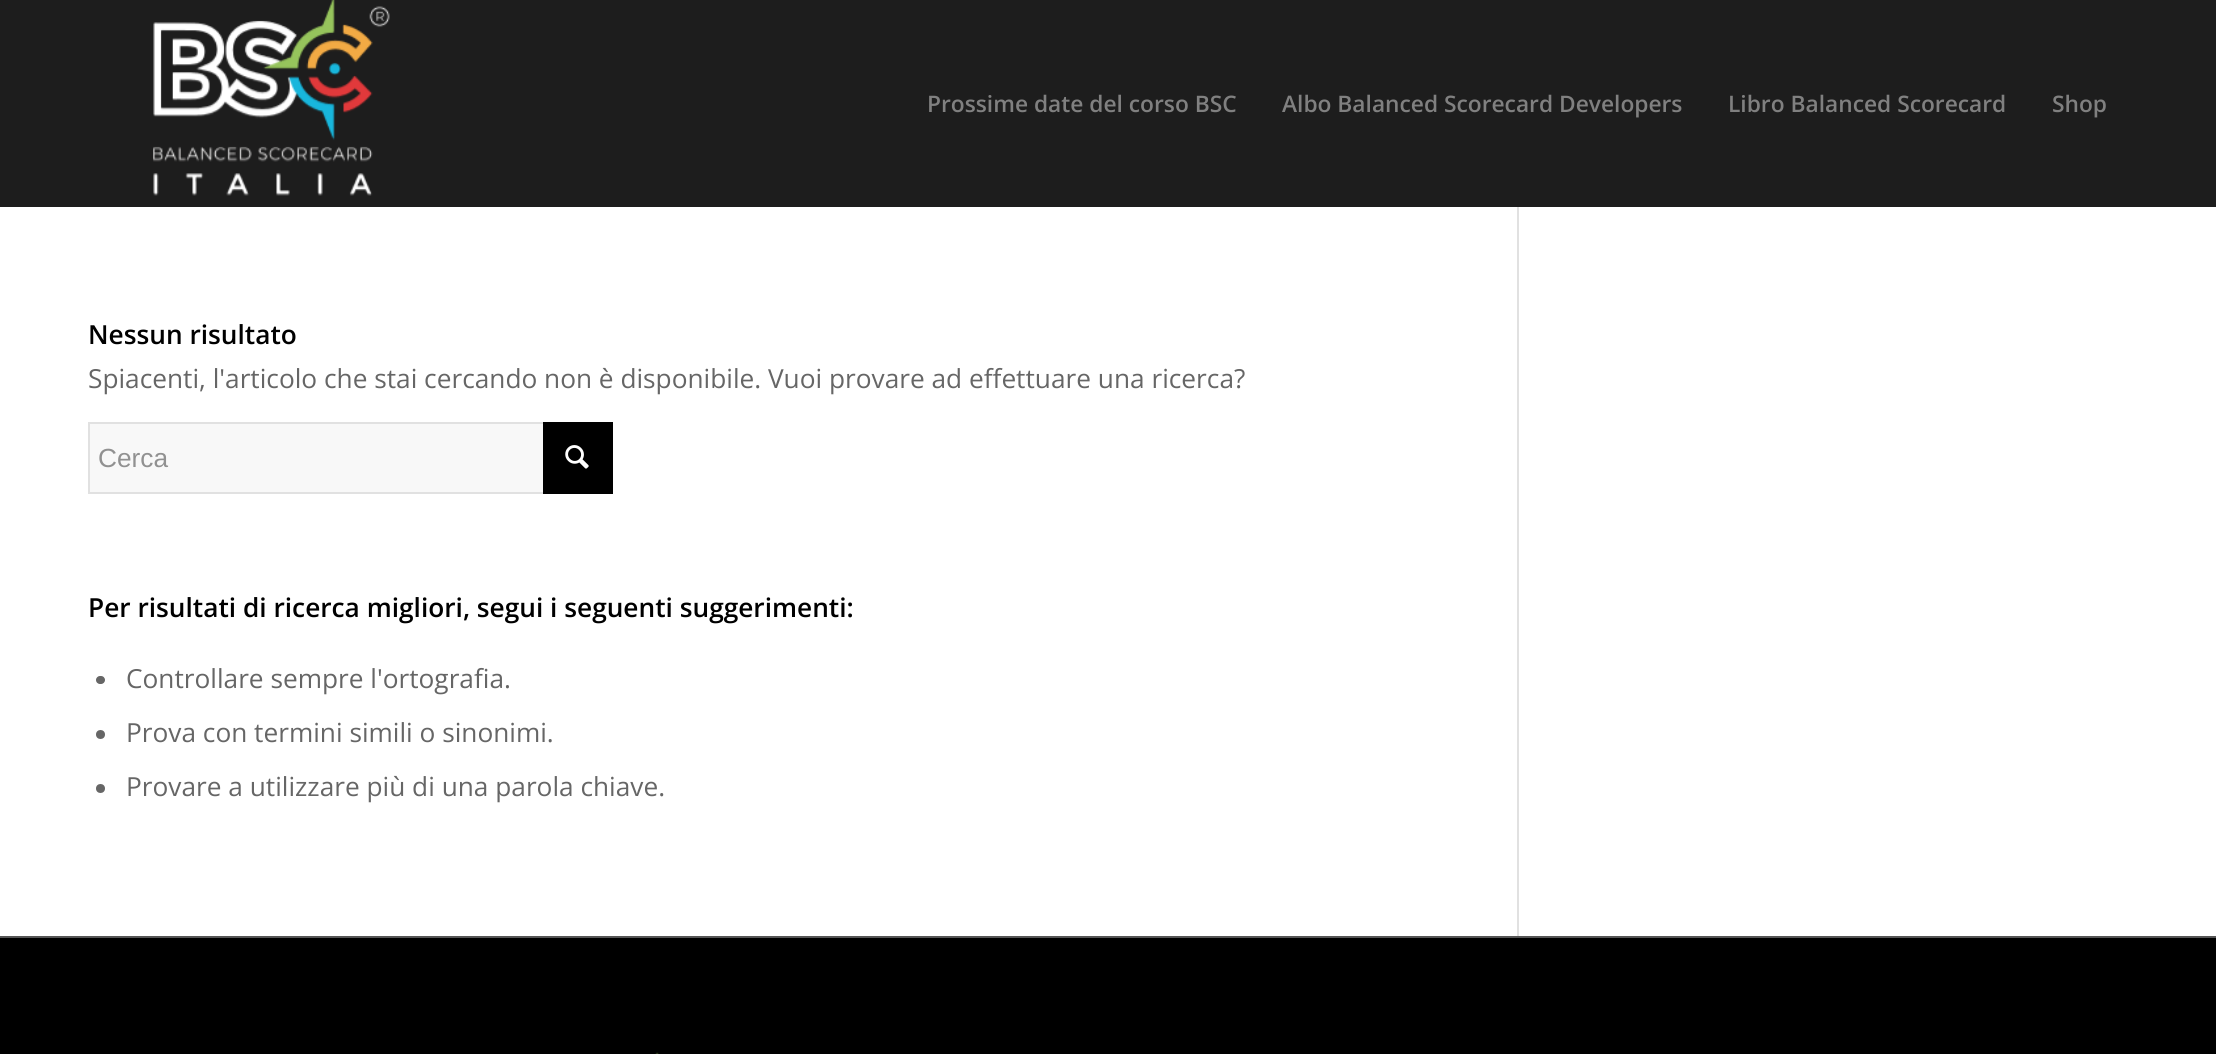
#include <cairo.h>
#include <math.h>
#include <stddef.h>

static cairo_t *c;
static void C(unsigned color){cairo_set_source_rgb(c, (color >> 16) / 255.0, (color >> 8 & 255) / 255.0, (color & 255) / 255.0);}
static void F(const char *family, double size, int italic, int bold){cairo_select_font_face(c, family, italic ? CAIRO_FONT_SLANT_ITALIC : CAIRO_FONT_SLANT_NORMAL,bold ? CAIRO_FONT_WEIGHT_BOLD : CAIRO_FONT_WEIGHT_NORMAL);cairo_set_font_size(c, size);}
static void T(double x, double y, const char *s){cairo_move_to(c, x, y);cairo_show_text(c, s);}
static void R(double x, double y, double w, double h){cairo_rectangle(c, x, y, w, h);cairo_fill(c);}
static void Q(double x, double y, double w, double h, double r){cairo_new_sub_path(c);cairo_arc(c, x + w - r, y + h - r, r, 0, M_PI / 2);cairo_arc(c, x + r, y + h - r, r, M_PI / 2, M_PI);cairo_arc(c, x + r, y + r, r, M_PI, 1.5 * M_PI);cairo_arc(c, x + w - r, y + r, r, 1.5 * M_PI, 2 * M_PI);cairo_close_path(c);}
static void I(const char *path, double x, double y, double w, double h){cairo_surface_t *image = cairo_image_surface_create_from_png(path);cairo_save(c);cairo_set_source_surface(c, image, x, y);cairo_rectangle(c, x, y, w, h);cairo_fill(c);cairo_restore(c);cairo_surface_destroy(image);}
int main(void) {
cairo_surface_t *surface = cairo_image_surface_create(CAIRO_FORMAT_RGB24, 2216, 1054);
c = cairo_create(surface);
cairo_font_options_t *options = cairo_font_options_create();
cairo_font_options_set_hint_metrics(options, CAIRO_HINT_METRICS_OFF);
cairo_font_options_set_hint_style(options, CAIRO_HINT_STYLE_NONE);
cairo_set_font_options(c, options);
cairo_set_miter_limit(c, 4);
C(0xffffff);
cairo_paint(c);
C(0xe1e1e1);
R(1517,203,2,733);
C(0x1d1d1d);
R(0,0,2216,207);
I("1.png",153,0,237,196);
F("Open Sans SemiBold",22.75,0,0);
C(0x808080);
T(927,112,"Prossime date del corso BSC");
T(1282,112,"Albo Balanced Scorecard Developers");
T(1728,112,"Libro Balanced Scorecard");
T(2052,112,"Shop");
F("Open Sans SemiBold",26.25,0,0);
C(0x000000);
T(88,344,"Nessun risultato");
F("Open Sans",26.25,0,0);
C(0x666666);
T(88,388,"Spiacenti, l'articolo che stai cercando non è disponibile. Vuoi provare ad effettuare una ricerca?");
C(0xf8f8f8);
R(90,424,453,68);
cairo_rectangle(c,89,423,523,70);
C(0xe1e1e1);
cairo_stroke(c);
F("Liberation Sans",26.25,0,0);
C(0x919191);
T(98,467,"Cerca");
C(0x000000);
R(543,422,70,72);
I("2.png",565,445,24,24);
F("Open Sans SemiBold",26.25,0,0);
T(88,617,"Per risultati di ricerca migliori, segui i seguenti suggerimenti:");
C(0x666666);
Q(96,676,9,8,4);
cairo_fill(c);
F("Open Sans",26.25,0,0);
T(126,688,"Controllare sempre l'ortografia.");
cairo_new_path(c);
cairo_arc(c,100.5,734.5,4.5,0,2 * M_PI);
cairo_fill(c);
T(126,742,"Prova con termini simili o sinonimi.");
cairo_new_path(c);
cairo_arc(c,100.5,788.5,4.5,0,2 * M_PI);
cairo_fill(c);
T(126,796,"Provare a utilizzare più di una parola chiave.");
C(0x000000);
R(0,938,2216,116);
C(0x555555);
R(0,936,2216,2);
I("3.png",655,1052,4,2);
cairo_surface_write_to_png(surface, "o.png");
cairo_font_options_destroy(options);
cairo_destroy(c);
cairo_surface_destroy(surface);
return 0;
}
